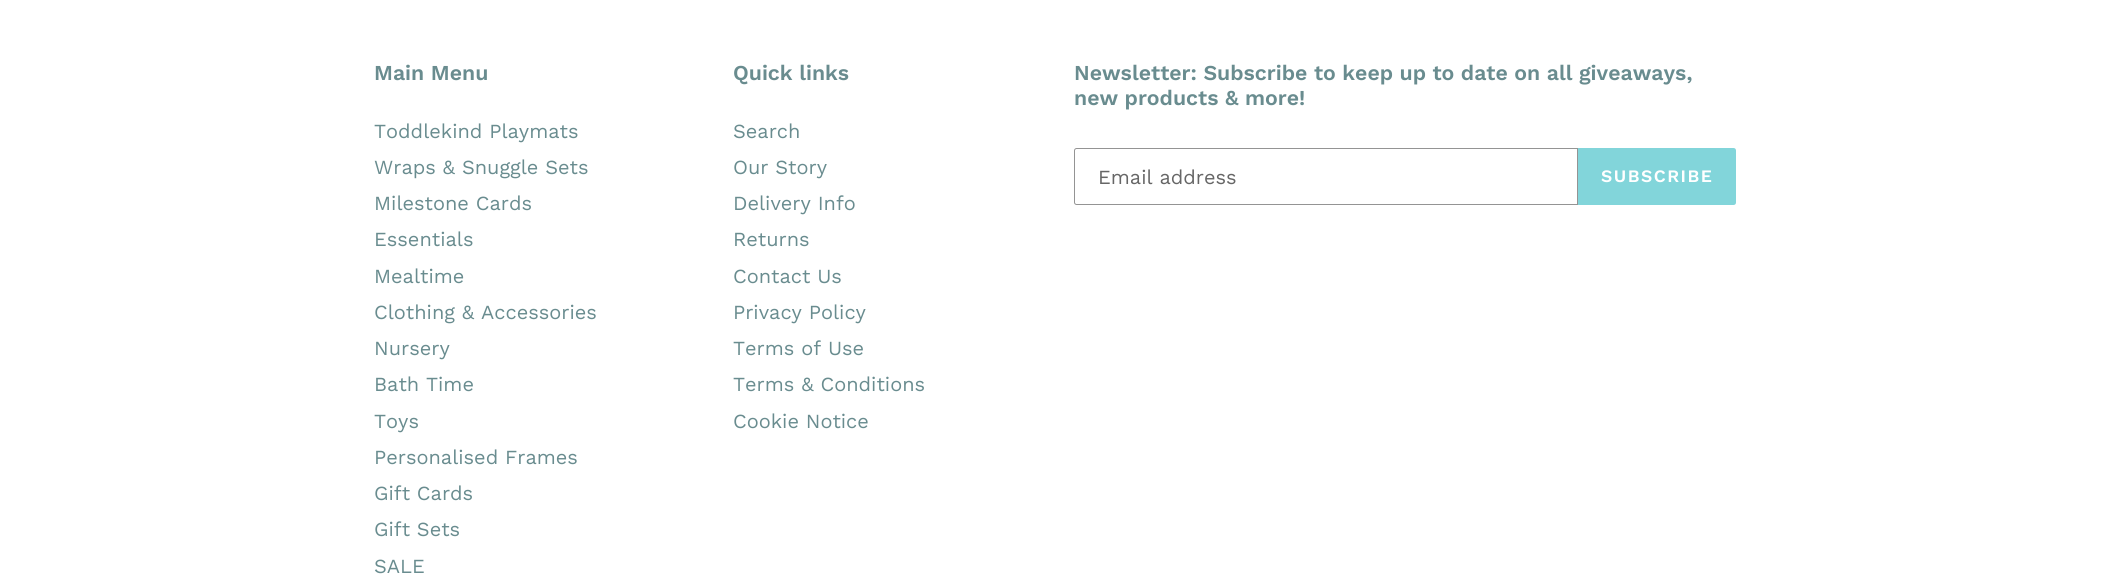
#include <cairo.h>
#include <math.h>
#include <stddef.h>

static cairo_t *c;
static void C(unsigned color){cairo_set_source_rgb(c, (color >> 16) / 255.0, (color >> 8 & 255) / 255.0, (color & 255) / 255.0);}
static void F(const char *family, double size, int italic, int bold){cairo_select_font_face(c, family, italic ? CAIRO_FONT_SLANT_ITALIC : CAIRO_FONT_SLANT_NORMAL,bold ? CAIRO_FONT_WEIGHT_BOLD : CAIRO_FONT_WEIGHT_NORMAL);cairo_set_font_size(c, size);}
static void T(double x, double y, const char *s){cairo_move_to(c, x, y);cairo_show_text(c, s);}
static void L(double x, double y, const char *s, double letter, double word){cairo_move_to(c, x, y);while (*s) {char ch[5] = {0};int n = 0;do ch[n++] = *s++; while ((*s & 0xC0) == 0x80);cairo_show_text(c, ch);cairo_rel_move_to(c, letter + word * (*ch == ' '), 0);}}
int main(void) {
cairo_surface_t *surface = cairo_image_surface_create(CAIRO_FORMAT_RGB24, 2109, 588);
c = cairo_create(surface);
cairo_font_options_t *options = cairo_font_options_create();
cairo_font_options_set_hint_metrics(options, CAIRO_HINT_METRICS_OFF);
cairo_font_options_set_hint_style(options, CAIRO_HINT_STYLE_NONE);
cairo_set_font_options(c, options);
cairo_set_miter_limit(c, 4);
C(0xffffff);
cairo_paint(c);
F("Work Sans SemiBold",21.25,0,0);
C(0x698c8f);
T(374,80,"Main Menu");
F("Work Sans",20,0,0);
T(374,138,"Toddlekind Playmats");
T(374,174,"Wraps & Snuggle Sets");
T(374,210,"Milestone Cards");
T(374,246,"Essentials");
T(374,283,"Mealtime");
T(374,319,"Clothing & Accessories");
T(374,355,"Nursery");
T(374,391,"Bath Time");
T(374,428,"Toys");
T(374,464,"Personalised Frames");
T(374,500,"Gift Cards");
T(374,536,"Gift Sets");
T(374,573,"SALE");
F("Work Sans SemiBold",21.25,0,0);
T(733,80,"Quick links");
F("Work Sans",20,0,0);
T(733,138,"Search");
T(733,174,"Our Story");
T(733,210,"Delivery Info");
T(733,246,"Returns");
T(733,283,"Contact Us");
T(733,319,"Privacy Policy");
T(733,355,"Terms of Use");
T(733,391,"Terms & Conditions");
T(733,428,"Cookie Notice");
F("Work Sans SemiBold",21.25,0,0);
T(1074,80,"Newsletter: Subscribe to keep up to date on all giveaways,");
T(1074,105,"new products & more!");
cairo_new_path(c);
cairo_move_to(c,1076.5,148.5);
cairo_line_to(c,1577.5,148.5);
cairo_line_to(c,1577.5,204.5);
cairo_line_to(c,1076.5,204.5);
cairo_curve_to(c,1075.5,204.5,1074.5,203.5,1074.5,202.5);
cairo_line_to(c,1074.5,150.5);
cairo_curve_to(c,1074.5,149.5,1075.5,148.5,1076.5,148.5);
cairo_close_path(c);
C(0x949494);
cairo_set_line_width(c,1);
cairo_stroke(c);
F("Work Sans",20,0,0);
C(0x666666);
T(1098,184,"Email address");
C(0x82d5da);
cairo_new_path(c);
cairo_move_to(c,1578,148);
cairo_line_to(c,1733.5,148);
cairo_curve_to(c,1735,148,1736,149,1736,150.5);
cairo_line_to(c,1736,202.5);
cairo_curve_to(c,1736,204,1735,205,1733.5,205);
cairo_line_to(c,1578,205);
cairo_close_path(c);
cairo_fill(c);
F("Work Sans SemiBold",17.5,0,0);
C(0xffffff);
L(1601,182,"SUBSCRIBE",1.5,0);
cairo_surface_write_to_png(surface, "o.png");
cairo_font_options_destroy(options);
cairo_destroy(c);
cairo_surface_destroy(surface);
return 0;
}
